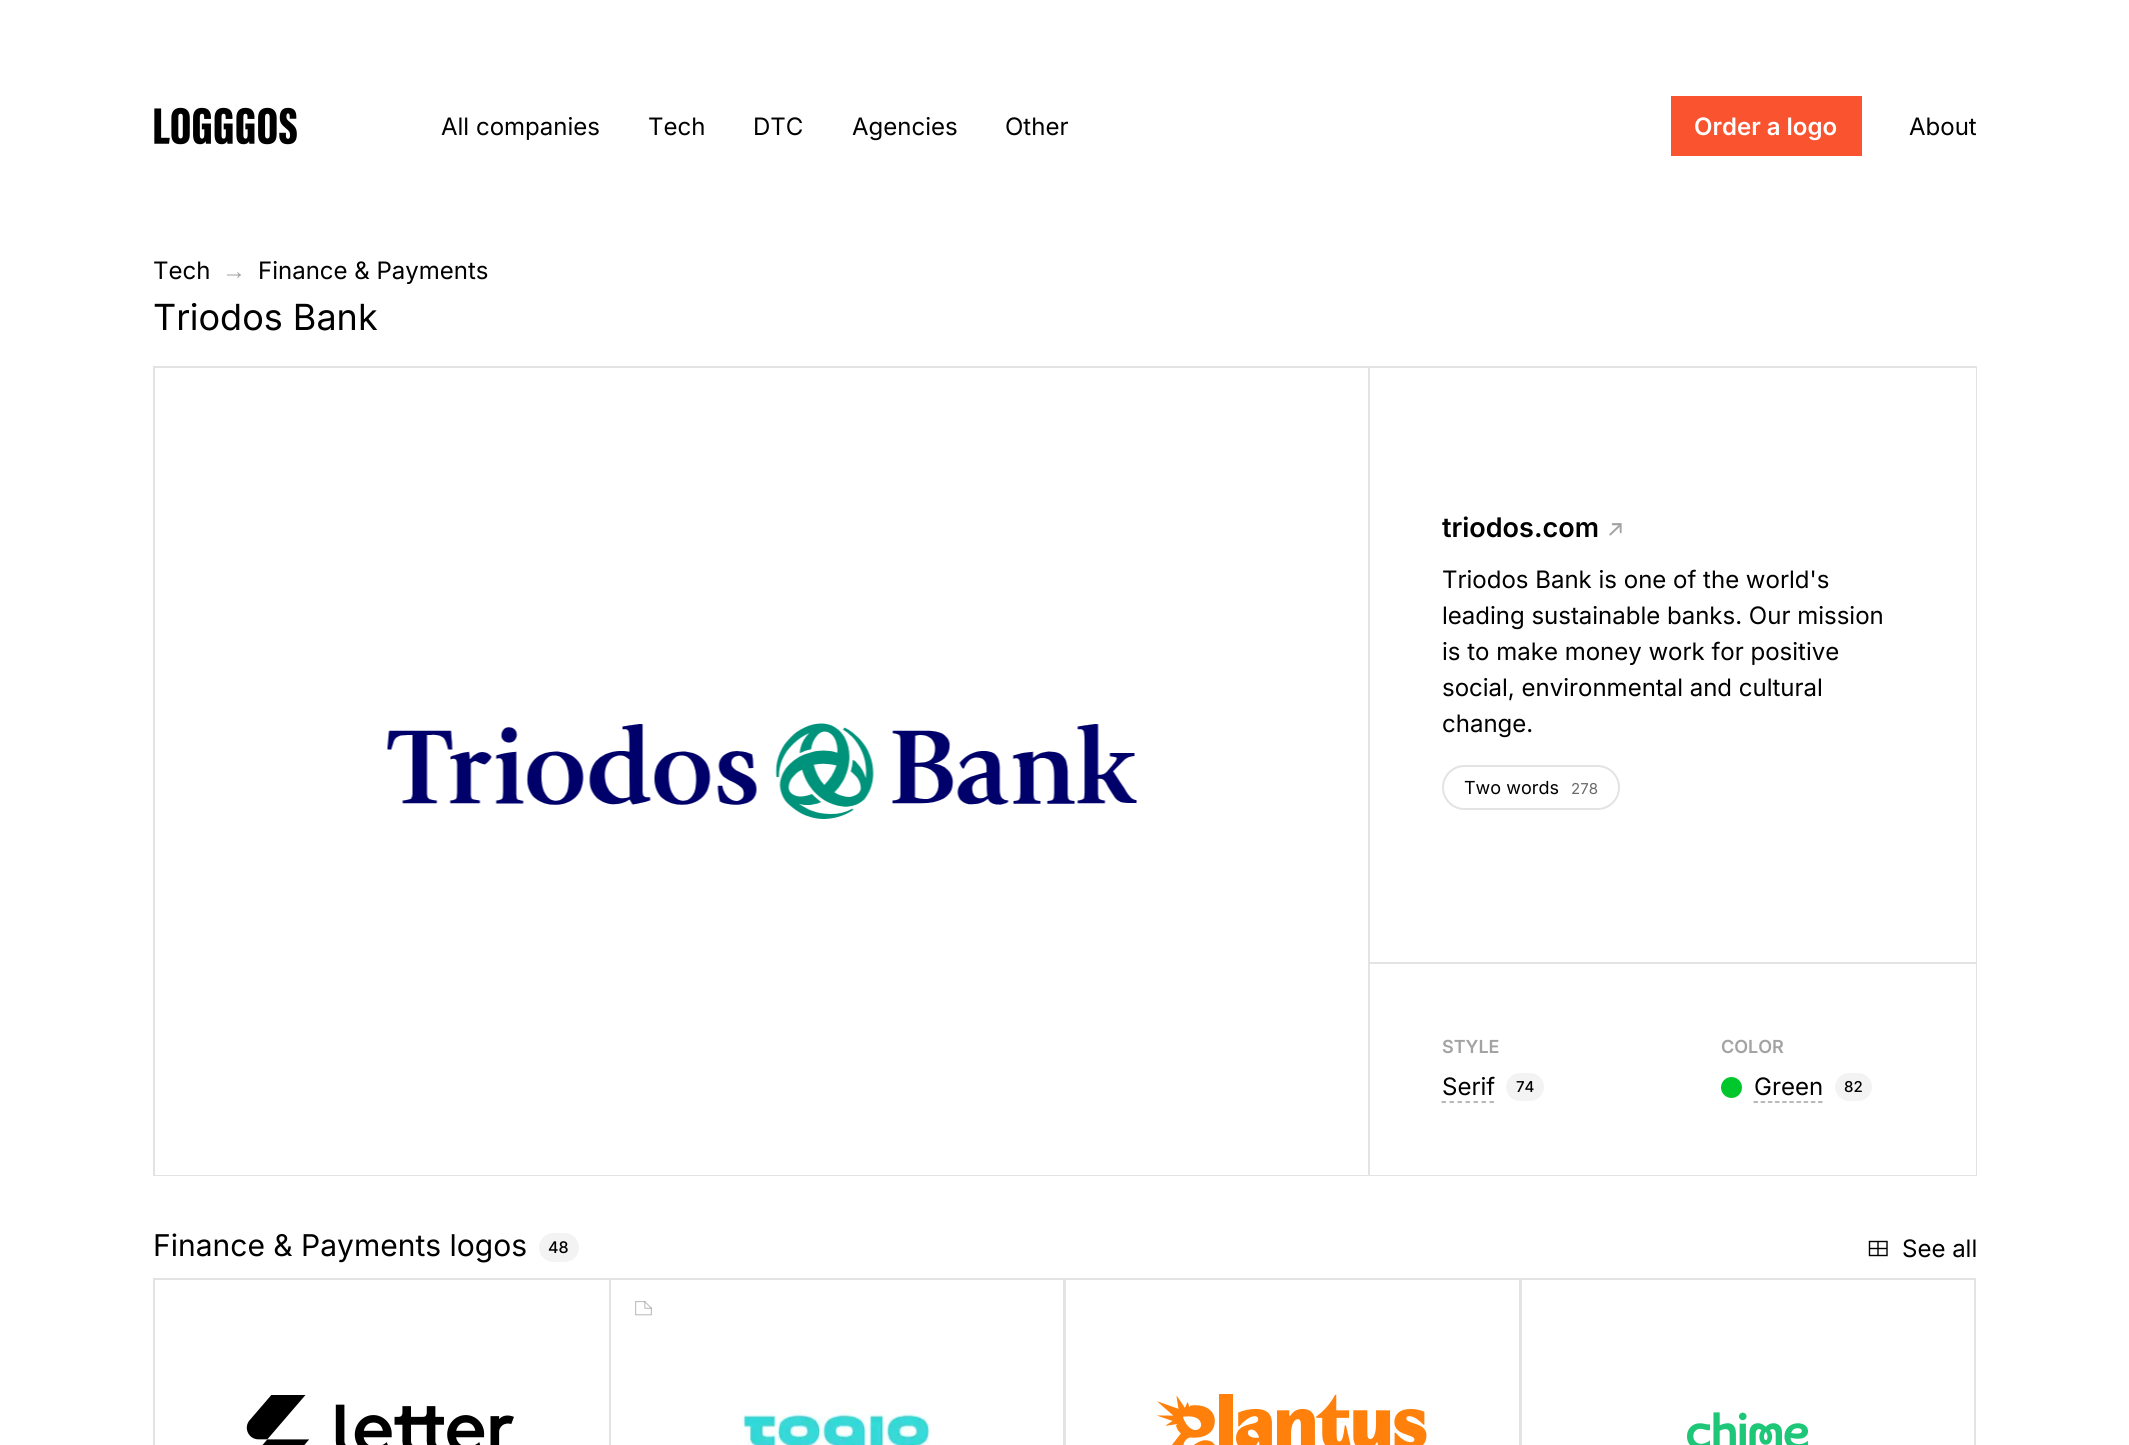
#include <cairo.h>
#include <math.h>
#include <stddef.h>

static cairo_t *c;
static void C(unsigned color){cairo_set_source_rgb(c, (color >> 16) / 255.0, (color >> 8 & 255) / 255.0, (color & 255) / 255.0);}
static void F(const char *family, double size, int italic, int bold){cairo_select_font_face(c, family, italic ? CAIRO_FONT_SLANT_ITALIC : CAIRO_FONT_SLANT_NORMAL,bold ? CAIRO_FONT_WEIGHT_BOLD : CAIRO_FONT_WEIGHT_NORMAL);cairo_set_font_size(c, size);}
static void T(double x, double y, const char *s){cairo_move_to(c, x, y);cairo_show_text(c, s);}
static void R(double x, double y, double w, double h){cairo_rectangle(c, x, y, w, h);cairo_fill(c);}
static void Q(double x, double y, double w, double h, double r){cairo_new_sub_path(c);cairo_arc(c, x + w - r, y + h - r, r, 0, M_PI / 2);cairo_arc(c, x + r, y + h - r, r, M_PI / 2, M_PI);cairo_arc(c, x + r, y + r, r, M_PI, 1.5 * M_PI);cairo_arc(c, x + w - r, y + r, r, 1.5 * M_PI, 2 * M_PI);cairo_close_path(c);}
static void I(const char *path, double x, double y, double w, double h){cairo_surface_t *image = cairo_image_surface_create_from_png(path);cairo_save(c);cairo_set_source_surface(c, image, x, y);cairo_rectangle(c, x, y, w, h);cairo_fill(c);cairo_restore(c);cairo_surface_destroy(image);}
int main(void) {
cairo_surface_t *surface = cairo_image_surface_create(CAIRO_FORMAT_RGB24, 2129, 1445);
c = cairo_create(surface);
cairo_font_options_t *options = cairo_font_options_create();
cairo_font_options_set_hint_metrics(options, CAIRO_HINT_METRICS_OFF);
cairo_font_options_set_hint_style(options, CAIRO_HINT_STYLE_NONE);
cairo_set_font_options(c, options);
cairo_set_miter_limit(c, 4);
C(0xffffff);
cairo_paint(c);
I("1.png",154,107,143,38);
F("Inter",24,0,0);
C(0x000000);
T(441,135,"All companies");
T(648,135,"Tech");
T(753,135,"DTC");
T(852,135,"Agencies");
T(1005,135,"Other");
C(0xfa5330);
R(1671,96,191,60);
F("Inter SemiBold",24,0,0);
C(0xffffff);
T(1694,135,"Order a logo");
F("Inter",24,0,0);
C(0x000000);
T(1909,135,"About");
T(153,279,"Tech");
F("Liberation Sans",24,0,0);
C(0xa3a3a3);
T(222,279,"→");
F("Inter",24,0,0);
C(0x000000);
T(258,279,"Finance & Payments");
F("Inter",36,0,0);
T(153,330,"Triodos Bank");
C(0xe3e3e3);
R(153,366,1824,810);
C(0xffffff);
R(155,368,1213,807);
I("2.png",387,723,750,96);
R(1370,368,606,807);
F("Inter SemiBold",27,0,0);
C(0x000000);
T(1442,537,"triodos.com");
I("3.png",1609,523,13,13);
F("Inter",24,0,0);
T(1442,588,"Triodos Bank is one of the world's");
T(1442,624,"leading sustainable banks. Our mission");
T(1442,660,"is to make money work for positive");
T(1442,696,"social, environmental and cultural");
T(1442,732,"change.");
Q(1443,766,176,43,21.5);
C(0xe3e3e3);
cairo_stroke(c);
F("Inter",18,0,0);
C(0x000000);
T(1464,794,"Two words");
F("Inter",15,0,0);
C(0x686868);
T(1571,794,"278");
C(0xe3e3e3);
R(1370,962,606,2);
F("Inter SemiBold",18,0,0);
C(0xa3a3a3);
T(1442,1053,"STYLE");
cairo_new_path(c);
cairo_move_to(c,1441.5,1102);
cairo_line_to(c,1494,1102);
cairo_set_line_width(c,1.5);
cairo_set_dash(c,(double[]){4.5,3.5},2,0);
cairo_stroke(c);
F("Inter",24,0,0);
C(0x000000);
T(1442,1095,"Serif");
C(0xf3f3f3);
Q(1506,1073,38,28,14);
cairo_fill(c);
F("Inter Medium",15,0,0);
C(0x000000);
T(1516,1092,"74");
F("Inter SemiBold",18,0,0);
C(0xa3a3a3);
T(1721,1053,"COLOR");
C(0x00c82c);
cairo_new_path(c);
cairo_arc(c,1731.5,1087.5,10.5,0,2 * M_PI);
cairo_fill(c);
cairo_new_path(c);
cairo_move_to(c,1753.5,1102);
cairo_line_to(c,1822.5,1102);
C(0xa3a3a3);
cairo_set_dash(c,(double[]){4.5,2.67},2,0);
cairo_stroke(c);
F("Inter",24,0,0);
C(0x000000);
T(1754,1095,"Green");
C(0xf3f3f3);
Q(1835,1073,37,28,14);
cairo_fill(c);
F("Inter Medium",15,0,0);
C(0x000000);
T(1844,1092,"82");
F("Inter",30,0,0);
T(153,1256,"Finance & Payments logos");
C(0xf3f3f3);
Q(539,1233,40,29,14.5);
cairo_fill(c);
F("Inter Medium",16,0,0);
C(0x000000);
T(548,1253,"48");
cairo_new_path(c);
cairo_move_to(c,1869.5,1241.5);
cairo_line_to(c,1887,1241.5);
cairo_line_to(c,1887,1255.5);
cairo_line_to(c,1869.5,1255.5);
cairo_close_path(c);
cairo_move_to(c,1878,1241.5);
cairo_line_to(c,1878,1255);
cairo_move_to(c,1869.5,1248.5);
cairo_line_to(c,1886.5,1248.5);
cairo_set_line_width(c,1.4);
cairo_set_dash(c,NULL,0,0);
cairo_stroke(c);
F("Inter",24,0,0);
T(1902,1257,"See all");
cairo_rectangle(c,154,1279,456,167);
C(0xe3e3e3);
cairo_set_line_width(c,2);
cairo_stroke(c);
I("4.png",246,1395,268,50);
cairo_rectangle(c,610,1279,454,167);
cairo_stroke(c);
I("5.png",635,1301,17,15);
I("6.png",741,1408,190,37);
cairo_rectangle(c,1065,1279,455,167);
cairo_stroke(c);
I("7.png",1157,1394,270,51);
cairo_rectangle(c,1521,1279,454,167);
cairo_stroke(c);
I("8.png",1687,1412,122,33);
cairo_surface_write_to_png(surface, "o.png");
cairo_font_options_destroy(options);
cairo_destroy(c);
cairo_surface_destroy(surface);
return 0;
}
